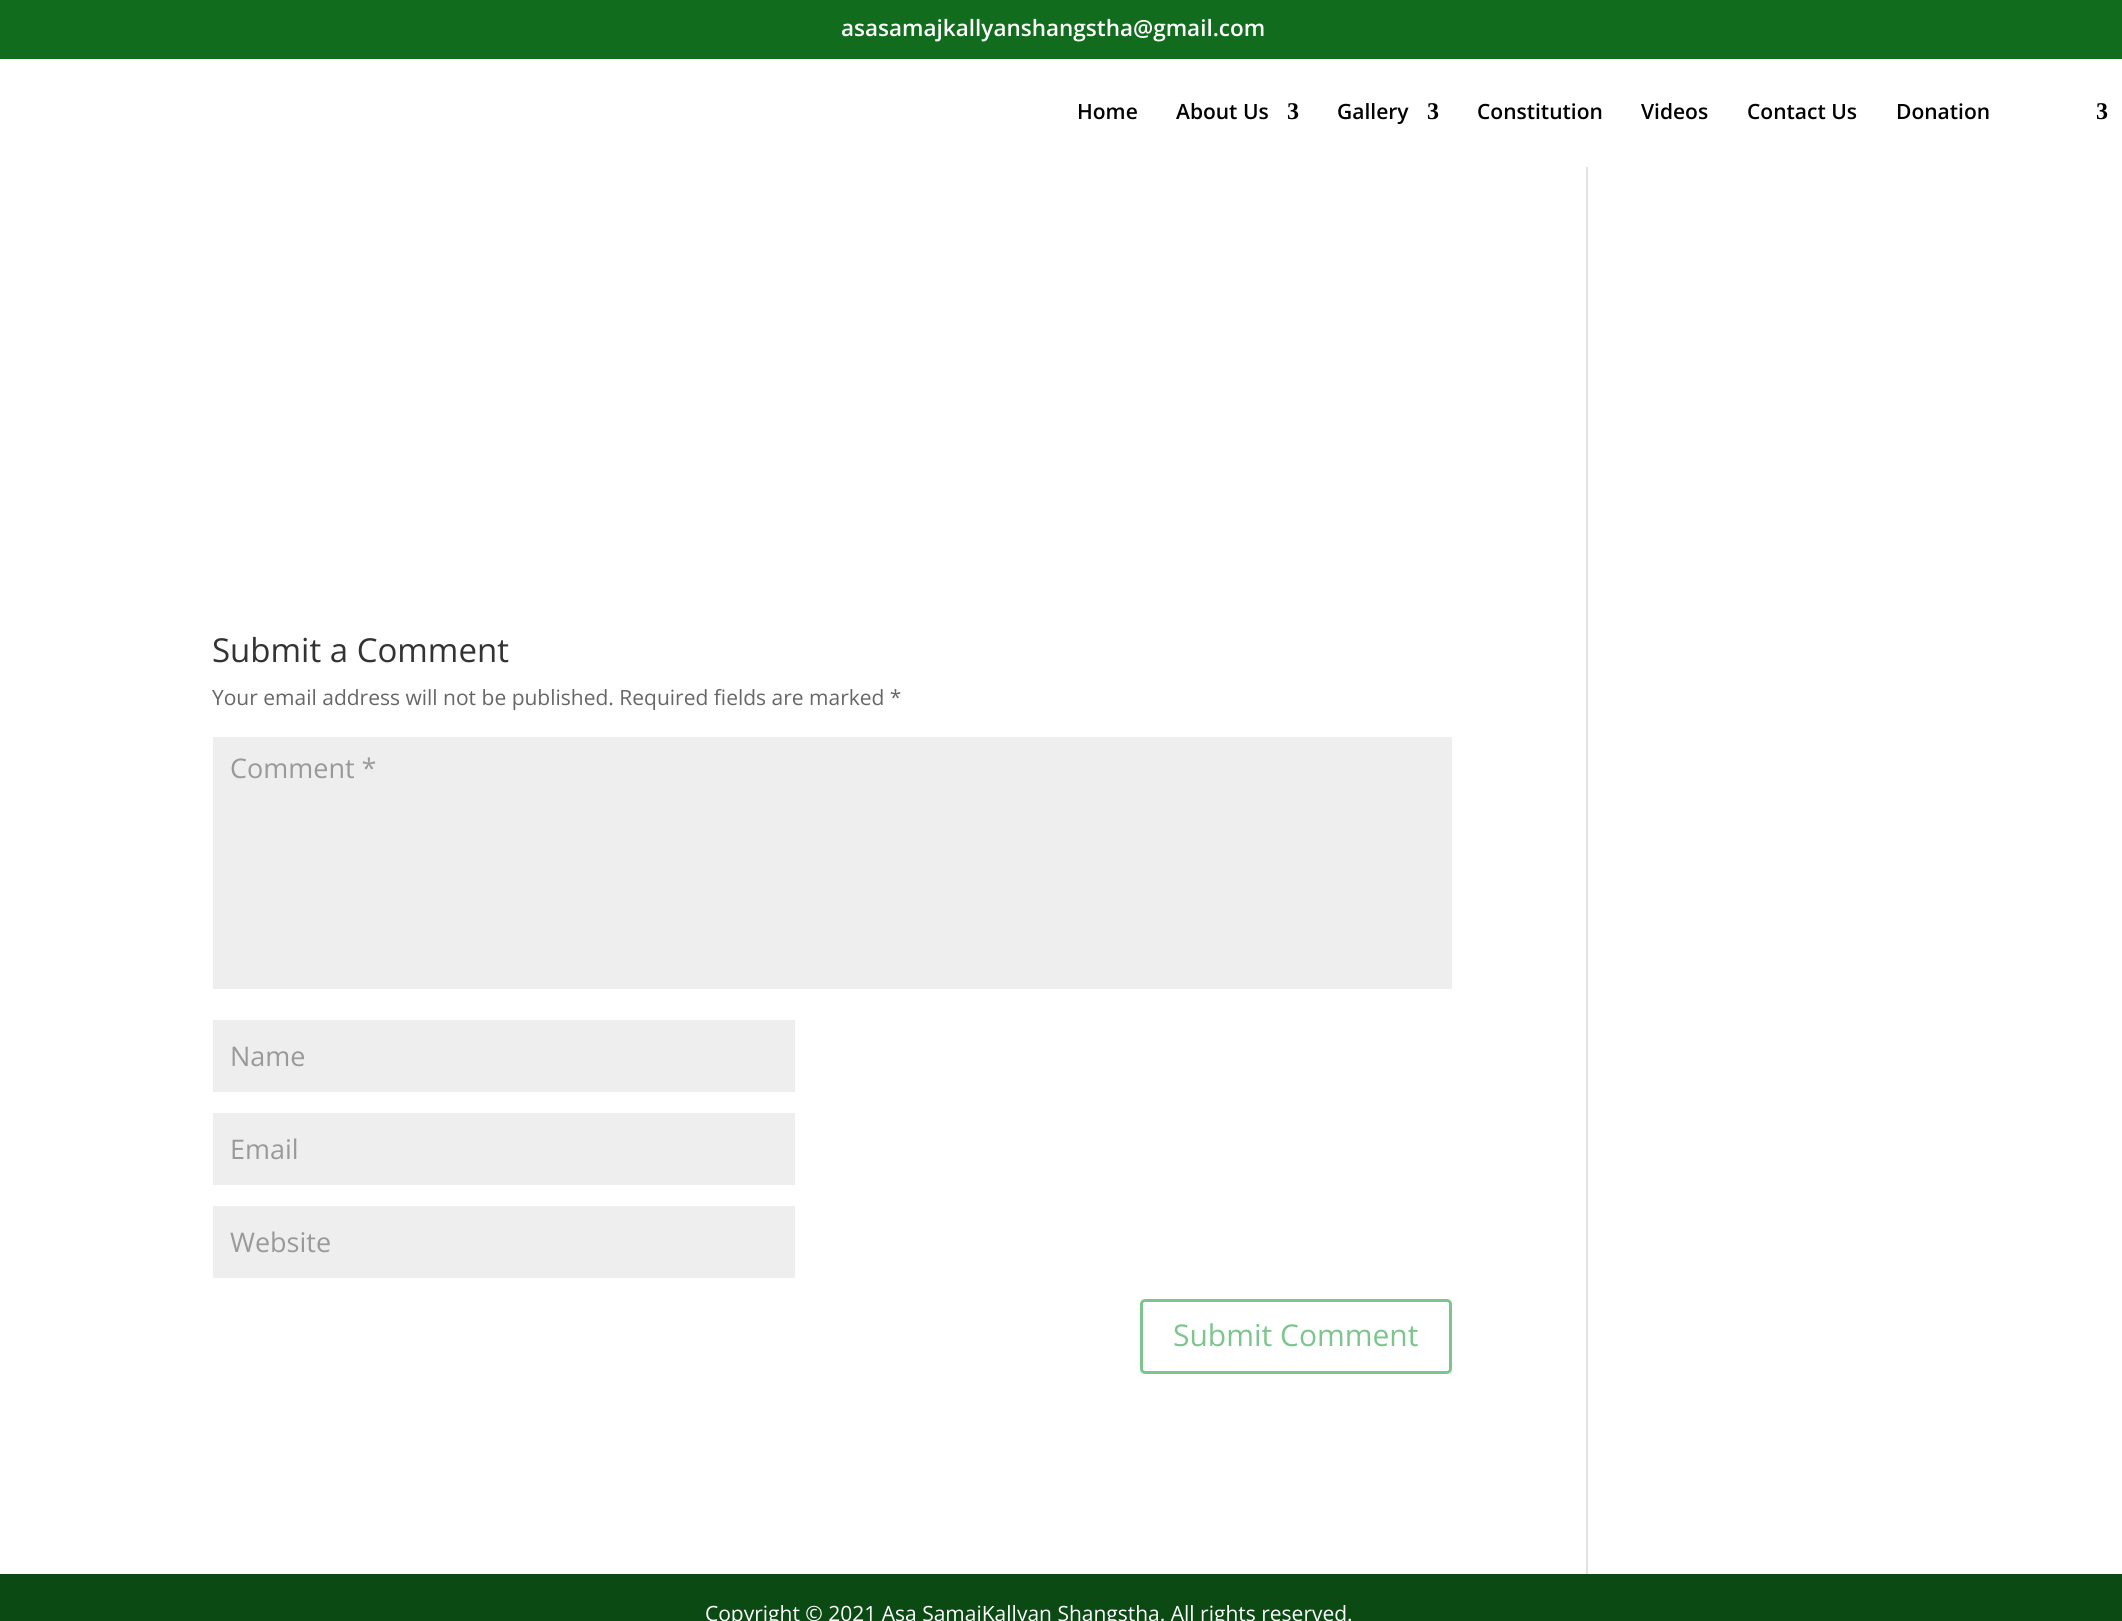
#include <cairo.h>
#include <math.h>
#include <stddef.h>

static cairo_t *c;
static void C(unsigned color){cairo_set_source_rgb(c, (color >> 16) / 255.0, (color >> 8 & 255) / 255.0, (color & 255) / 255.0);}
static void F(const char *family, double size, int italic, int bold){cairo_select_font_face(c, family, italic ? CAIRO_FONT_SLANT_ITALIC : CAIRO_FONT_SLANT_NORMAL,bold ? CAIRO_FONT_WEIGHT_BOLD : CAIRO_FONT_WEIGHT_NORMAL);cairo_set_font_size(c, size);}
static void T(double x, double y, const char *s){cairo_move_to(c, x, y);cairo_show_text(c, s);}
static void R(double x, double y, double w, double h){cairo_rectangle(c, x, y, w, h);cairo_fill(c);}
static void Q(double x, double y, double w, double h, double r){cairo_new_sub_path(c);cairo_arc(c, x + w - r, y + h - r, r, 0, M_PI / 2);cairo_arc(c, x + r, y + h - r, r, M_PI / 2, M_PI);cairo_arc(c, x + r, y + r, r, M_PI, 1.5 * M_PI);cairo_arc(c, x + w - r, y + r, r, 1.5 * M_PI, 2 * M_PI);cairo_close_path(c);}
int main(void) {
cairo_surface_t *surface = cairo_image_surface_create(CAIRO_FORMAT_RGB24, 2122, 1621);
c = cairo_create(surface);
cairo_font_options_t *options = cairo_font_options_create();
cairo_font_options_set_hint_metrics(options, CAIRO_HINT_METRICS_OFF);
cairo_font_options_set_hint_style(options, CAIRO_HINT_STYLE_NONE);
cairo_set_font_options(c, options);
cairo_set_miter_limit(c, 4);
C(0xffffff);
cairo_paint(c);
C(0x116d1d);
R(0,0,2122,59);
F("Open Sans SemiBold",22.5,0,0);
C(0xffffff);
T(841,36,"asasamajkallyanshangstha@gmail.com");
F("Open Sans SemiBold",21,0,0);
C(0x000000);
T(1077,119,"Home");
T(1176,119,"About Us");
F("Liberation Serif",24,0,1);
T(1287,119,"3");
F("Open Sans SemiBold",21,0,0);
T(1337,119,"Gallery");
F("Liberation Serif",24,0,1);
T(1427,119,"3");
F("Open Sans SemiBold",21,0,0);
T(1477,119,"Constitution");
T(1641,119,"Videos");
T(1747,119,"Contact Us");
T(1896,119,"Donation");
F("Liberation Serif",24,0,1);
T(2096,119,"3");
F("Open Sans",33,0,0);
C(0x333333);
T(212,662,"Submit a Comment");
F("Open Sans",21,0,0);
C(0x666666);
T(212,705,"Your email address will not be published. Required fields are marked *");
C(0xeeeeee);
R(213,737,1239,252);
F("Open Sans",27,0,0);
C(0x999999);
T(230,778,"Comment *");
C(0xeeeeee);
R(213,1020,582,72);
C(0x999999);
T(230,1066,"Name");
C(0xeeeeee);
R(213,1113,582,72);
C(0x999999);
T(230,1159,"Email");
C(0xeeeeee);
R(213,1206,582,72);
C(0x999999);
T(230,1252,"Website");
Q(1141.5,1300.5,309,72,3.5);
C(0x7cc68d);
cairo_set_line_width(c,3);
cairo_stroke(c);
F("Open Sans",30,0,0);
T(1173,1346,"Submit Comment");
C(0xe2e2e2);
R(1586,167,2,1407);
C(0x0c4a14);
R(0,1574,2122,47);
F("Open Sans",21,0,0);
C(0xffffff);
T(705,1621,"Copyright © 2021 Asa SamajKallyan Shangstha. All rights reserved.");
cairo_surface_write_to_png(surface, "o.png");
cairo_font_options_destroy(options);
cairo_destroy(c);
cairo_surface_destroy(surface);
return 0;
}
